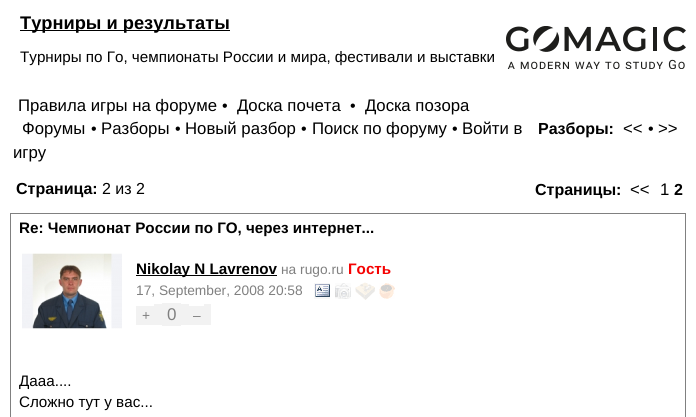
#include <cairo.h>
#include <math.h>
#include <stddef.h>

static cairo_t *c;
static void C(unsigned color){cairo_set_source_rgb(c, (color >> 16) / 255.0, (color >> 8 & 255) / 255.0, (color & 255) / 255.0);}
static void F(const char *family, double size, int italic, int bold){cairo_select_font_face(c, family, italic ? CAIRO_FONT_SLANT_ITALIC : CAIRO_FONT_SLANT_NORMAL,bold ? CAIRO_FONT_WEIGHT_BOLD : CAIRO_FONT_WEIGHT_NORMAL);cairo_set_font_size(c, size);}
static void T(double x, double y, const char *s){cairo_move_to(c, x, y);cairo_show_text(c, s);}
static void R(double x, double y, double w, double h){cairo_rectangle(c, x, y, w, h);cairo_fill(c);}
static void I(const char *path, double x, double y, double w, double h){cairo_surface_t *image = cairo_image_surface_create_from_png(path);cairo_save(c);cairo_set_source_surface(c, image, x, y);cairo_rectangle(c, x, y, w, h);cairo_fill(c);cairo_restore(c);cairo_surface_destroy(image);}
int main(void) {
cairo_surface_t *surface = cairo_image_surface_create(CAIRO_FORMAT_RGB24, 696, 417);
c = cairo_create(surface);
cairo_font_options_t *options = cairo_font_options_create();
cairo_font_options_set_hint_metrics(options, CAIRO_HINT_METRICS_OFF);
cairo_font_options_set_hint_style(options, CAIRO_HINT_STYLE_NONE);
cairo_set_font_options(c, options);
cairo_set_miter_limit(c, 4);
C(0xffffff);
cairo_paint(c);
C(0x000000);
R(20,30,210,1);
F("Liberation Sans",18.25,0,1);
T(20,29,"Турниры и результаты");
F("Liberation Sans",15.2,0,0);
T(20,62,"Турниры по Го, чемпионаты России и мира, фестивали и выставки");
F("Liberation Sans",16.75,0,0);
T(18,111,"Правила игры на форуме");
F("Liberation Sans",16,0,0);
T(222,111,"•");
F("Liberation Sans",16.75,0,0);
T(237,111,"Доска почета");
F("Liberation Sans",16,0,0);
T(350,111,"•");
F("Liberation Sans",16.75,0,0);
T(365,111,"Доска позора");
T(22,134,"Форумы");
F("Liberation Sans",16,0,0);
T(91,134,"•");
F("Liberation Sans",16.75,0,0);
T(101,134,"Разборы");
F("Liberation Sans",16,0,0);
T(175,134,"•");
F("Liberation Sans",16.75,0,0);
T(185,134,"Новый разбор");
F("Liberation Sans",16,0,0);
T(301,134,"•");
F("Liberation Sans",16.75,0,0);
T(312,134,"Поиск по форуму");
F("Liberation Sans",16,0,0);
T(452,134,"•");
F("Liberation Sans",16.75,0,0);
T(462,134,"Войти в");
F("Liberation Sans",16,0,1);
T(538,134,"Разборы:");
F("Liberation Sans",16.75,0,0);
T(623,134,"<<");
F("Liberation Sans",16,0,0);
T(648,134,"•");
F("Liberation Sans",16.75,0,0);
T(658,134,">>");
T(13,158,"игру");
F("Liberation Sans",16,0,1);
T(16,194,"Страница:");
F("Liberation Sans",16,0,0);
T(102,194,"2 из 2");
F("Liberation Sans",16,0,1);
T(535,195,"Страницы:");
F("Liberation Sans",16.75,0,0);
T(630,195,"<<");
T(660,195,"1");
F("Liberation Sans",16,0,1);
T(674,195,"2");
cairo_rectangle(c,10.5,213.5,675,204);
C(0x808080);
cairo_set_line_width(c,1);
cairo_stroke(c);
F("Liberation Sans",15.2,0,1);
C(0x000000);
T(19,233,"Re: Чемпионат России по ГО, через интернет...");
I("1.png",22,253,100,76);
R(136,275,141,1);
T(136,274,"Nikolay N Lavrenov");
F("Liberation Sans",13.75,0,0);
C(0x808080);
T(281,274,"на rugo.ru");
F("Liberation Sans",15.2,0,1);
C(0xf50202);
T(348,274,"Гость");
F("Liberation Sans",13.75,0,0);
C(0x808080);
T(136,295,"17, September, 2008 20:58");
I("2.png",314,283,16,16);
I("3.png",335,283,16,16);
I("4.png",355,282,20,18);
I("5.png",379,283,16,16);
C(0xf2f2f2);
R(136,306,18,19);
C(0x808080);
T(142,320,"+");
C(0xf2f2f2);
R(162,303,19,23);
F("Liberation Sans",17,0,0);
C(0x808080);
T(167,320,"0");
C(0xf2f2f2);
R(154,304,8,21);
R(181,304,8,21);
R(189,306,15,19);
F("Liberation Sans",13.75,0,0);
C(0x808080);
T(193,320,"–");
C(0xf2f2f2);
R(204,304,7,21);
F("Liberation Sans",15.2,0,0);
C(0x000000);
T(19,386,"Дааа....");
T(19,407,"Сложно тут у вас...");
I("6.png",506,26,180,43);
cairo_surface_write_to_png(surface, "o.png");
cairo_font_options_destroy(options);
cairo_destroy(c);
cairo_surface_destroy(surface);
return 0;
}
